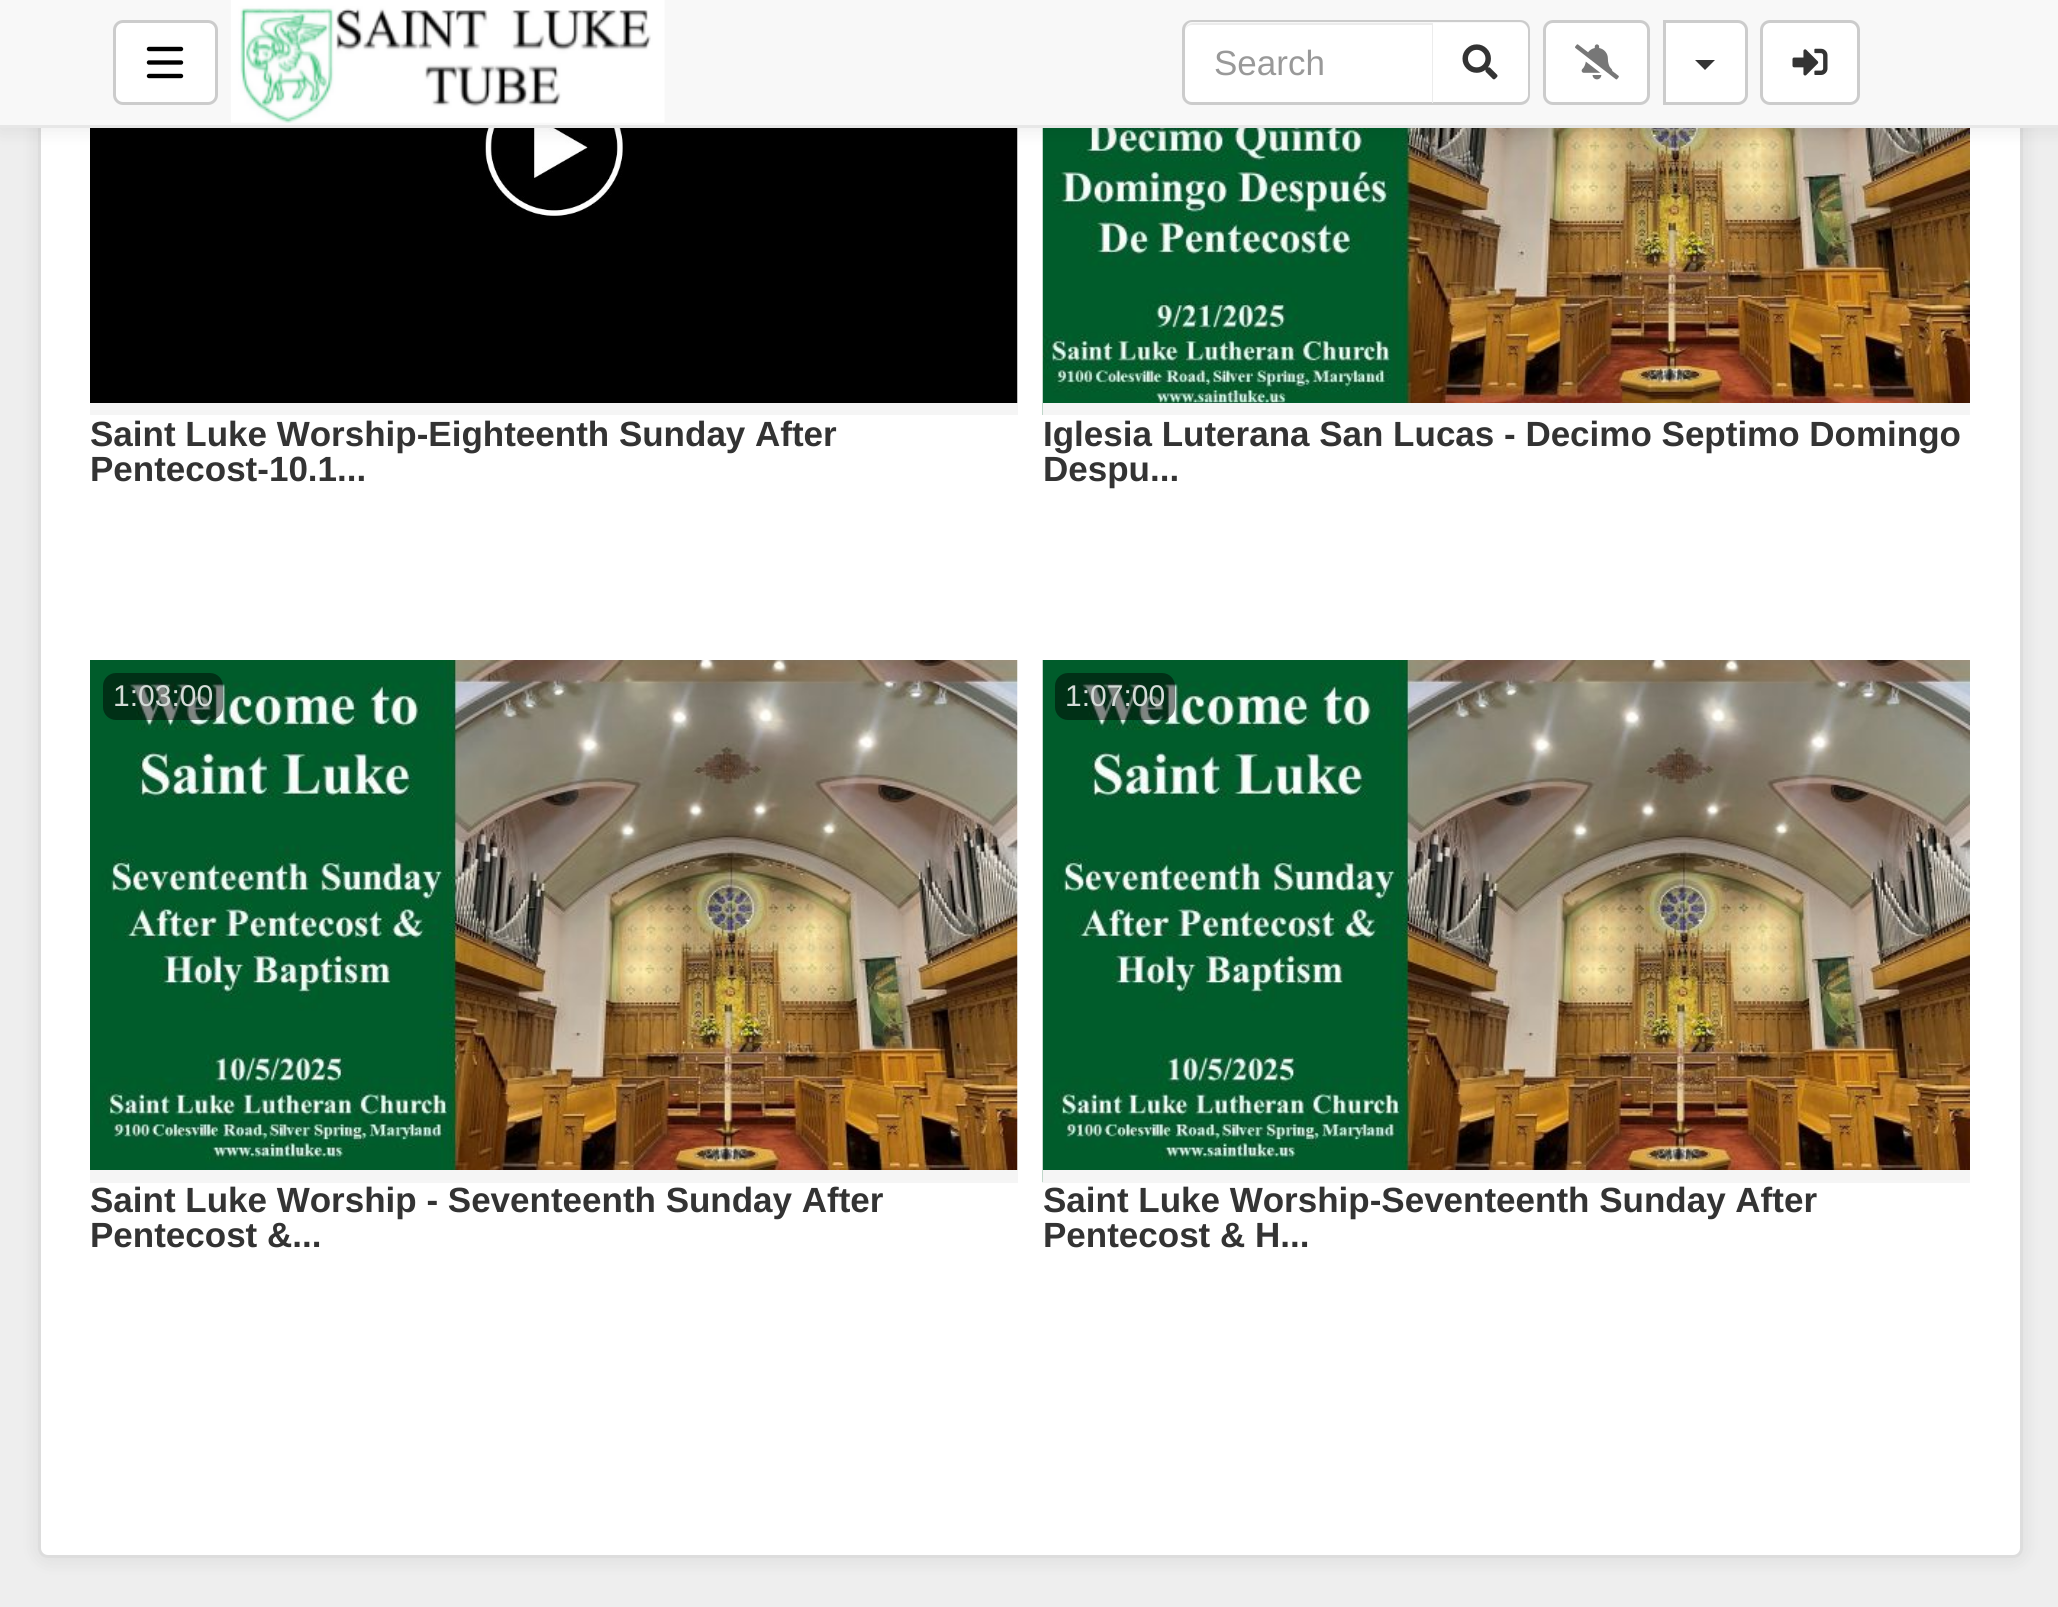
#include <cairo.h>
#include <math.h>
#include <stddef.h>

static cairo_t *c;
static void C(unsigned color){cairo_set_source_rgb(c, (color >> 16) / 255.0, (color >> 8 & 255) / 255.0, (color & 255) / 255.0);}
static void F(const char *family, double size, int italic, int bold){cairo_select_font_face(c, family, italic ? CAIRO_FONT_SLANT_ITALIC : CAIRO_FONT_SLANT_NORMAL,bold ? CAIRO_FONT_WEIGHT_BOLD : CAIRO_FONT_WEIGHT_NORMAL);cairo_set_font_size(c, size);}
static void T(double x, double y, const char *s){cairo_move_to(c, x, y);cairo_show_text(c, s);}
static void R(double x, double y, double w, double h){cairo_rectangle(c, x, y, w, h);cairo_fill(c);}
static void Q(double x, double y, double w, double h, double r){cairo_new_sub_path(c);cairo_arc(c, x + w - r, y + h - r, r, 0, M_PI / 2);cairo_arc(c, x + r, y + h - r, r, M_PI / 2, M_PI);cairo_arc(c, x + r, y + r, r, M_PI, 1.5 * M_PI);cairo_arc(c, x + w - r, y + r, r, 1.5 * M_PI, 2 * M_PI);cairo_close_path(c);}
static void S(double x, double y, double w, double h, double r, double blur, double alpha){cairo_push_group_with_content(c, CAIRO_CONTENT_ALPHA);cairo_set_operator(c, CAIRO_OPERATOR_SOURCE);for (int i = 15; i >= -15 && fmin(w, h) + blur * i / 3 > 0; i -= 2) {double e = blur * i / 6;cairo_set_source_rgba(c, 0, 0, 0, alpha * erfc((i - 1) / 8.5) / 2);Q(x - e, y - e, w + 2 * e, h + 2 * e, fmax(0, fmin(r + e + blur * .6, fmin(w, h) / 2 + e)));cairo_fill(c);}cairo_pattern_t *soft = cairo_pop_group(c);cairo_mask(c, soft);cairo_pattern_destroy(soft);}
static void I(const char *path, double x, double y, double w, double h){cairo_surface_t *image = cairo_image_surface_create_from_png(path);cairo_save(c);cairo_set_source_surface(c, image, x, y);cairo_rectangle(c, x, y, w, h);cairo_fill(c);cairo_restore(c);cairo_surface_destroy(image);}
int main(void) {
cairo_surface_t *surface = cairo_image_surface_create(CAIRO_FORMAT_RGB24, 2058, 1607);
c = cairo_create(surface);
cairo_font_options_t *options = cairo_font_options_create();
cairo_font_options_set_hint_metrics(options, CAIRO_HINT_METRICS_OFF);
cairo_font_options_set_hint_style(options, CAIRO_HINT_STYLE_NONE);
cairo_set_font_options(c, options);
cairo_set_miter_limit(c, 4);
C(0xeeeeee);
cairo_paint(c);
C(0x000000);
S(38,-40,1985,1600,10,10,.08);
C(0xffffff);
Q(39.5,-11.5,1982,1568,8.5);
cairo_fill_preserve(c);
C(0xdddddd);
cairo_set_line_width(c,3);
cairo_stroke(c);
I("5.png",90,128,928,275);
I("6.png",1042,128,928,287);
C(0x000000);
S(0,3,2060,127,0,10,.08);
C(0xf8f8f8);
R(0,0,2058,125);
C(0xe7e7e7);
R(0,125,2058,3);
C(0xffffff);
Q(114.5,21.5,102,82,8.5);
cairo_fill_preserve(c);
C(0xcccccc);
cairo_stroke(c);
cairo_new_path(c);
cairo_move_to(c,149,49);
cairo_line_to(c,181,49);
cairo_move_to(c,149,62.5);
cairo_line_to(c,181,62.5);
cairo_move_to(c,181,76);
cairo_line_to(c,149,76);
C(0x000000);
cairo_set_line_width(c,4.4);
cairo_set_line_cap(c,CAIRO_LINE_CAP_ROUND);
cairo_stroke(c);
I("1.png",231,0,434,123);
C(0xffffff);
cairo_new_path(c);
cairo_move_to(c,1433,23);
cairo_line_to(c,1520,23);
cairo_curve_to(c,1524.5,23,1528,26.5,1528,31);
cairo_line_to(c,1528,95);
cairo_curve_to(c,1528,99.5,1524.5,103,1520,103);
cairo_line_to(c,1433,103);
cairo_close_path(c);
cairo_fill(c);
C(0xcccccc);
cairo_set_fill_rule(c,CAIRO_FILL_RULE_EVEN_ODD);
cairo_new_path(c);
cairo_move_to(c,1432,20);
cairo_line_to(c,1520,20);
cairo_curve_to(c,1526,20,1530,24,1530,30);
cairo_line_to(c,1530,95);
cairo_curve_to(c,1530,101,1526,105,1520,105);
cairo_line_to(c,1432,105);
cairo_close_path(c);
cairo_move_to(c,1432,22);
cairo_line_to(c,1520,22);
cairo_curve_to(c,1524,22,1528,26,1528,30);
cairo_line_to(c,1528,95);
cairo_curve_to(c,1528,99,1524,102,1520,102);
cairo_line_to(c,1432,102);
cairo_close_path(c);
cairo_fill(c);
C(0xffffff);
cairo_new_path(c);
cairo_move_to(c,1193,23);
cairo_line_to(c,1433,23);
cairo_line_to(c,1433,103);
cairo_line_to(c,1193,103);
cairo_curve_to(c,1188.5,103,1185,99.5,1185,95);
cairo_line_to(c,1185,31);
cairo_curve_to(c,1185,26.5,1188.5,23,1193,23);
cairo_close_path(c);
cairo_fill(c);
C(0xececec);
cairo_set_fill_rule(c,CAIRO_FILL_RULE_WINDING);
cairo_new_path(c);
cairo_move_to(c,1192,25);
cairo_line_to(c,1432,25);
cairo_line_to(c,1432,103);
cairo_line_to(c,1433,103);
cairo_line_to(c,1433,23);
cairo_line_to(c,1193,23);
cairo_curve_to(c,1189,23,1185,27,1185,31);
cairo_line_to(c,1185,32);
cairo_curve_to(c,1185,28,1188,25,1192,25);
cairo_close_path(c);
cairo_fill(c);
C(0xcccccc);
cairo_set_fill_rule(c,CAIRO_FILL_RULE_EVEN_ODD);
cairo_new_path(c);
cairo_move_to(c,1192,20);
cairo_line_to(c,1432,20);
cairo_line_to(c,1432,105);
cairo_line_to(c,1192,105);
cairo_curve_to(c,1187,105,1182,101,1182,95);
cairo_line_to(c,1182,30);
cairo_curve_to(c,1182,24,1187,20,1192,20);
cairo_close_path(c);
cairo_move_to(c,1192,22);
cairo_line_to(c,1432,22);
cairo_line_to(c,1432,102);
cairo_line_to(c,1192,102);
cairo_curve_to(c,1188,102,1185,99,1185,95);
cairo_line_to(c,1185,30);
cairo_curve_to(c,1185,26,1188,22,1192,22);
cairo_close_path(c);
cairo_fill(c);
F("Liberation Sans",35,0,0);
C(0x999999);
T(1214,75,"Search");
I("2.png",1462,44,36,36);
C(0xffffff);
Q(1544.5,21.5,104,82,8.5);
cairo_fill_preserve(c);
C(0xcccccc);
cairo_set_line_width(c,3);
cairo_set_line_cap(c,CAIRO_LINE_CAP_BUTT);
cairo_stroke(c);
I("3.png",1575,44,44,36);
C(0xffffff);
cairo_new_path(c);
cairo_move_to(c,1664.5,21.5);
cairo_line_to(c,1738,21.5);
cairo_curve_to(c,1742.5,21.5,1746.5,25.5,1746.5,30);
cairo_line_to(c,1746.5,95);
cairo_curve_to(c,1746.5,99.5,1742.5,103.5,1738,103.5);
cairo_line_to(c,1664.5,103.5);
cairo_close_path(c);
cairo_fill_preserve(c);
C(0xcccccc);
cairo_stroke(c);
C(0x333333);
cairo_set_fill_rule(c,CAIRO_FILL_RULE_WINDING);
cairo_new_path(c);
cairo_move_to(c,1695,60);
cairo_line_to(c,1715,60);
cairo_line_to(c,1705,70);
cairo_close_path(c);
cairo_fill(c);
C(0xffffff);
Q(1761.5,21.5,97,82,8.5);
cairo_fill_preserve(c);
C(0xcccccc);
cairo_stroke(c);
I("4.png",1792,48,36,28);
C(0xf5f5f5);
R(90,403,928,12);
F("Liberation Sans",35,0,1);
C(0x333333);
T(90,446,"Saint Luke Worship-Eighteenth Sunday After");
T(90,481,"Pentecost-10.1...");
C(0xf5f5f5);
R(1043,403,927,12);
C(0x333333);
T(1043,446,"Iglesia Luterana San Lucas - Decimo Septimo Domingo");
T(1043,481,"Despu...");
I("7.png",90,660,928,510);
cairo_set_source_rgba(c,0,0,0,0.48);
Q(103,673,120,47,13);
cairo_fill(c);
F("Liberation Sans",30,0,0);
C(0xd4dbd7);
T(113,706,"1:03:00");
C(0xf5f5f5);
R(90,1170,928,13);
F("Liberation Sans",35,0,1);
C(0x333333);
T(90,1212,"Saint Luke Worship - Seventeenth Sunday After");
T(90,1247,"Pentecost &...");
I("8.png",1042,660,928,523);
cairo_set_source_rgba(c,0,0,0,0.48);
Q(1055,673,120,47,13);
cairo_fill(c);
F("Liberation Sans",30,0,0);
C(0xd4dbd7);
T(1065,706,"1:07:00");
C(0xf5f5f5);
R(1043,1170,927,13);
F("Liberation Sans",35,0,1);
C(0x333333);
T(1043,1212,"Saint Luke Worship-Seventeenth Sunday After");
T(1043,1247,"Pentecost & H...");
cairo_surface_write_to_png(surface, "o.png");
cairo_font_options_destroy(options);
cairo_destroy(c);
cairo_surface_destroy(surface);
return 0;
}
